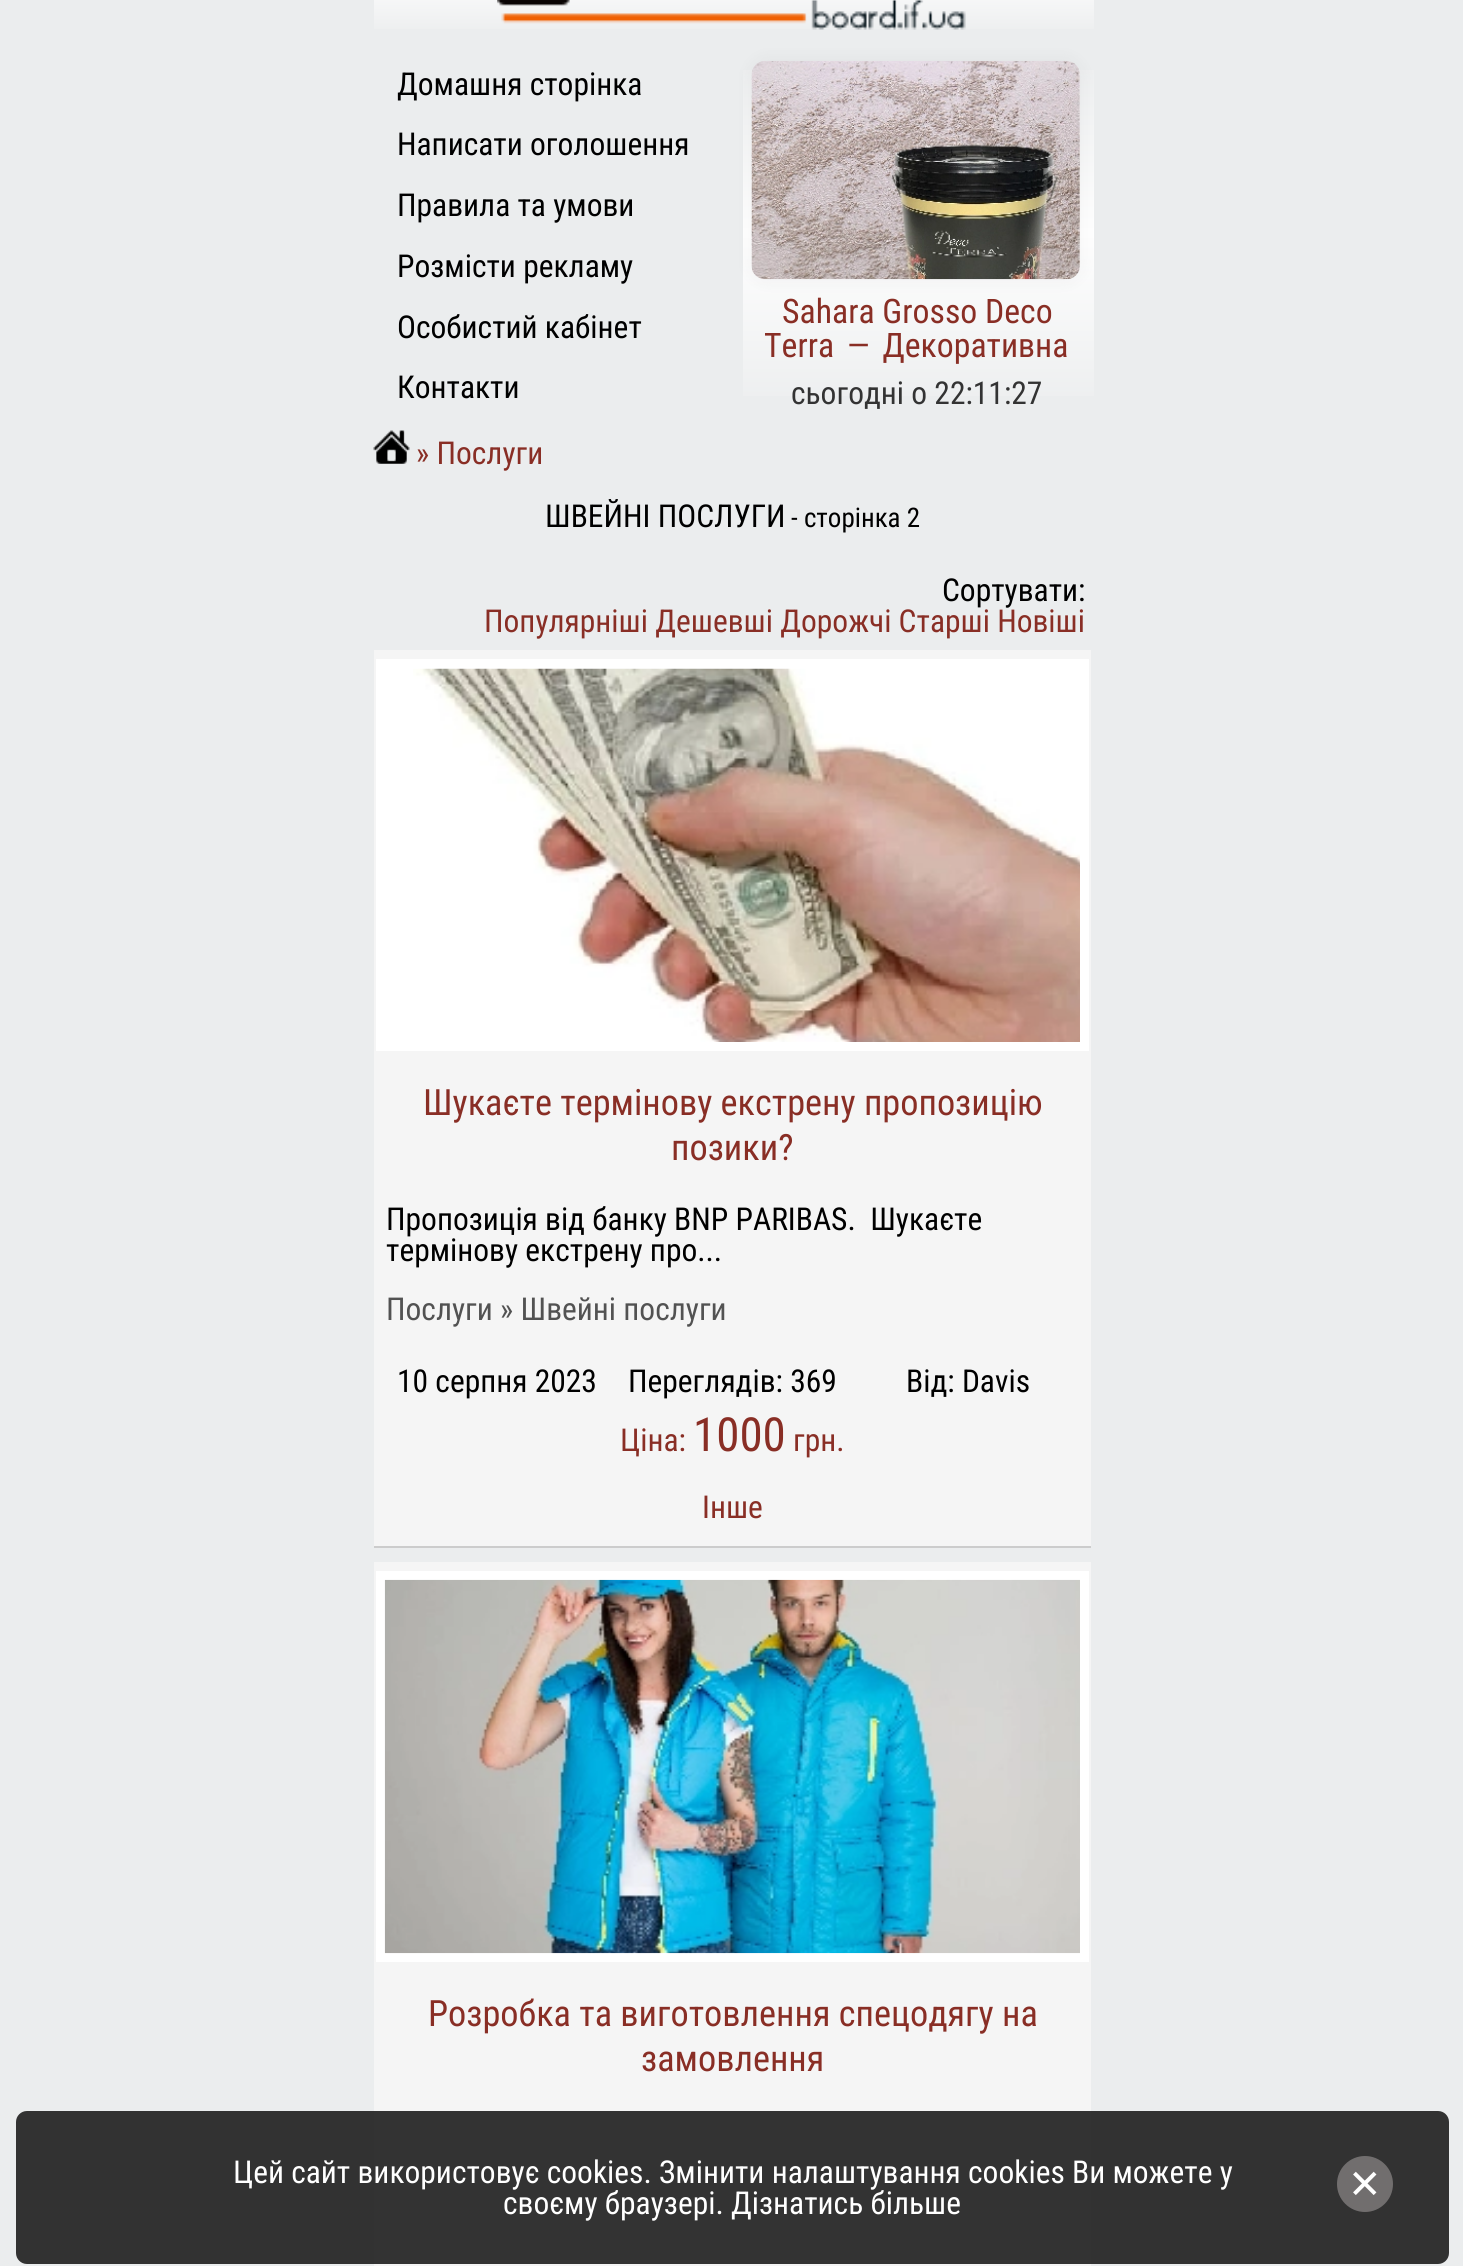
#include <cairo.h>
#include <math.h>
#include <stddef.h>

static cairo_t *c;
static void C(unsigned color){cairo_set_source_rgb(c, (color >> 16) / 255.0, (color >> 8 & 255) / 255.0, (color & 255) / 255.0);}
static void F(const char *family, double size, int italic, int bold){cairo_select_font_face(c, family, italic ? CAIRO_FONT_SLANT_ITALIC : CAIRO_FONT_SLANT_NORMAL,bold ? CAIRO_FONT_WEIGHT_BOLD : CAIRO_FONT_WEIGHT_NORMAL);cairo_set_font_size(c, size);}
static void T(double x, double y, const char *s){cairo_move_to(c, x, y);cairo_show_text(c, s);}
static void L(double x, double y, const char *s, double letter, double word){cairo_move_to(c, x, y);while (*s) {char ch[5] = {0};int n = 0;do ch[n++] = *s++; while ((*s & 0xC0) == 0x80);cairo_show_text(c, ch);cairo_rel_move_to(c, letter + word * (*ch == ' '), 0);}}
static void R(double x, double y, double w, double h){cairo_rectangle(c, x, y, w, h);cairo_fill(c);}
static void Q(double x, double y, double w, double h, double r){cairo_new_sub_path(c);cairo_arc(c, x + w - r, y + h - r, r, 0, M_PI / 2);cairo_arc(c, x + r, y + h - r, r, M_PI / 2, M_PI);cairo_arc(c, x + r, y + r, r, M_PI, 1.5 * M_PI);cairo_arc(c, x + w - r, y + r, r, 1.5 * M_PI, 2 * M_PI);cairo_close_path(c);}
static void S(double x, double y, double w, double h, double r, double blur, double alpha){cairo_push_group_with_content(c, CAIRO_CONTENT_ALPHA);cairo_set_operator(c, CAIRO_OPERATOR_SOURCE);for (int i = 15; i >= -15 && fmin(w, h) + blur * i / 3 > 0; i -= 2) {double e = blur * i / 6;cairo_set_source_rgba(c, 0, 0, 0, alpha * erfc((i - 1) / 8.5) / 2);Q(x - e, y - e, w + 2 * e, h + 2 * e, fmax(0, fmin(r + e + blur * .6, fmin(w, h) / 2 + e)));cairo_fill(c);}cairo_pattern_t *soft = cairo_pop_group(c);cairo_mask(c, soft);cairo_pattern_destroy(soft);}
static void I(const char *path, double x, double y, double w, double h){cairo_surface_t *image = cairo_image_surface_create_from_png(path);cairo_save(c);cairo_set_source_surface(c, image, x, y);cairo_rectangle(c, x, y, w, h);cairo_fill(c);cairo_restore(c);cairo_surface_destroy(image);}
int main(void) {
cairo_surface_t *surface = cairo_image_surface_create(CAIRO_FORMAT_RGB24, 1463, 2266);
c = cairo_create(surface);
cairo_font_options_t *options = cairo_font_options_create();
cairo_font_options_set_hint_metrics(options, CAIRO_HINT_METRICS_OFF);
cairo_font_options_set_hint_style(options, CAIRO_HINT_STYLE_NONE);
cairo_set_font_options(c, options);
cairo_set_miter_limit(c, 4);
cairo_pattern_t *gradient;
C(0xebedee);
cairo_paint(c);
gradient = cairo_pattern_create_linear(734,-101,734,38);
cairo_pattern_add_color_stop_rgba(gradient,0,0.922,0.929,0.933,1);
cairo_pattern_add_color_stop_rgba(gradient,.5,1,1,1,1);
cairo_pattern_add_color_stop_rgba(gradient,1,0.922,0.929,0.933,1);
cairo_set_source(c,gradient);
cairo_pattern_destroy(gradient);
R(374,0,720,29);
I("1.png",497,0,469,30);
F("Roboto Condensed",31.5,0,0);
C(0x000000);
T(397,95,"Домашня сторінка");
T(397,155,"Написати оголошення");
T(397,216,"Правила та умови");
T(397,277,"Розмісти рекламу");
T(397,338,"Особистий кабінет");
T(397,398,"Контакти");
gradient = cairo_pattern_create_linear(918,47,918,419);
cairo_pattern_add_color_stop_rgba(gradient,0,0.922,0.929,0.933,1);
cairo_pattern_add_color_stop_rgba(gradient,.5,1,1,1,1);
cairo_pattern_add_color_stop_rgba(gradient,1,0.922,0.929,0.933,1);
cairo_set_source(c,gradient);
cairo_pattern_destroy(gradient);
R(743,70,351,326);
C(0x000000);
S(752,61,328,218,14,9,.05);
I("2.png",751,61,329,219);
F("Roboto Condensed",33.75,0,0);
C(0x892e25);
T(782,323,"Sahara Grosso Deco");
L(764,357,"Terra — Декоративна",0,5);
F("Roboto Condensed",31.5,0,0);
C(0x333333);
T(791,404,"сьогодні о 22:11:27");
I("3.png",373,430,37,34);
C(0x892e25);
T(416,464,"» Послуги");
C(0x000000);
T(545,527,"ШВЕЙНІ ПОСЛУГИ");
F("Roboto Condensed",27,0,0);
T(791,527,"- сторінка 2");
F("Roboto Condensed",31.5,0,0);
T(942,601,"Сортувати:");
C(0x892e25);
T(484,632,"Популярніші Дешевші Дорожчі Старші Новіші");
C(0xf5f5f5);
R(374,650,717,896);
C(0xcccccc);
R(374,1546,717,2);
C(0xffffff);
R(376,659,713,392);
I("4.png",413,668,667,374);
F("Roboto Condensed",36.25,0,0);
C(0x892e25);
T(423,1115,"Шукаєте термінову екстрену пропозицію");
T(671,1160,"позики?");
F("Roboto Condensed",31.5,0,0);
C(0x000000);
T(386,1230,"Пропозиція від банку BNP PARIBAS.  Шукаєте");
T(386,1261,"термінову екстрену про...");
C(0x525252);
T(386,1320,"Послуги » Швейні послуги");
C(0x000000);
T(397,1392,"10 серпня 2023");
T(628,1392,"Переглядів: 369");
T(906,1392,"Від: Davis");
C(0x892e25);
T(620,1451,"Ціна:");
F("Roboto Condensed",47,0,0);
T(693,1451,"1000");
F("Roboto Condensed",31.5,0,0);
T(793,1451,"грн.");
T(702,1518,"Інше");
C(0xf5f5f5);
R(374,1562,717,704);
C(0xffffff);
R(376,1571,713,391);
I("5.png",384,1579,696,375);
F("Roboto Condensed",36.25,0,0);
C(0x892e25);
T(428,2026,"Розробка та виготовлення спецодягу на");
T(641,2071,"замовлення");
cairo_set_source_rgba(c,0.118,0.118,0.118,0.9);
Q(16,2111,1433,153,11);
cairo_fill(c);
F("Roboto Condensed",31.5,0,0);
C(0xffffff);
T(233,2183,"Цей сайт використовує cookies. Змінити налаштування cookies Ви можете у");
T(503,2214,"своєму браузері. Дізнатись більше");
C(0x716e6e);
cairo_new_path(c);
cairo_arc(c,1365,2184,28,0,2 * M_PI);
cairo_fill(c);
F("DejaVu Sans",40,0,0);
C(0xffffff);
T(1348,2198,"✕");
cairo_surface_write_to_png(surface, "o.png");
cairo_font_options_destroy(options);
cairo_destroy(c);
cairo_surface_destroy(surface);
return 0;
}
